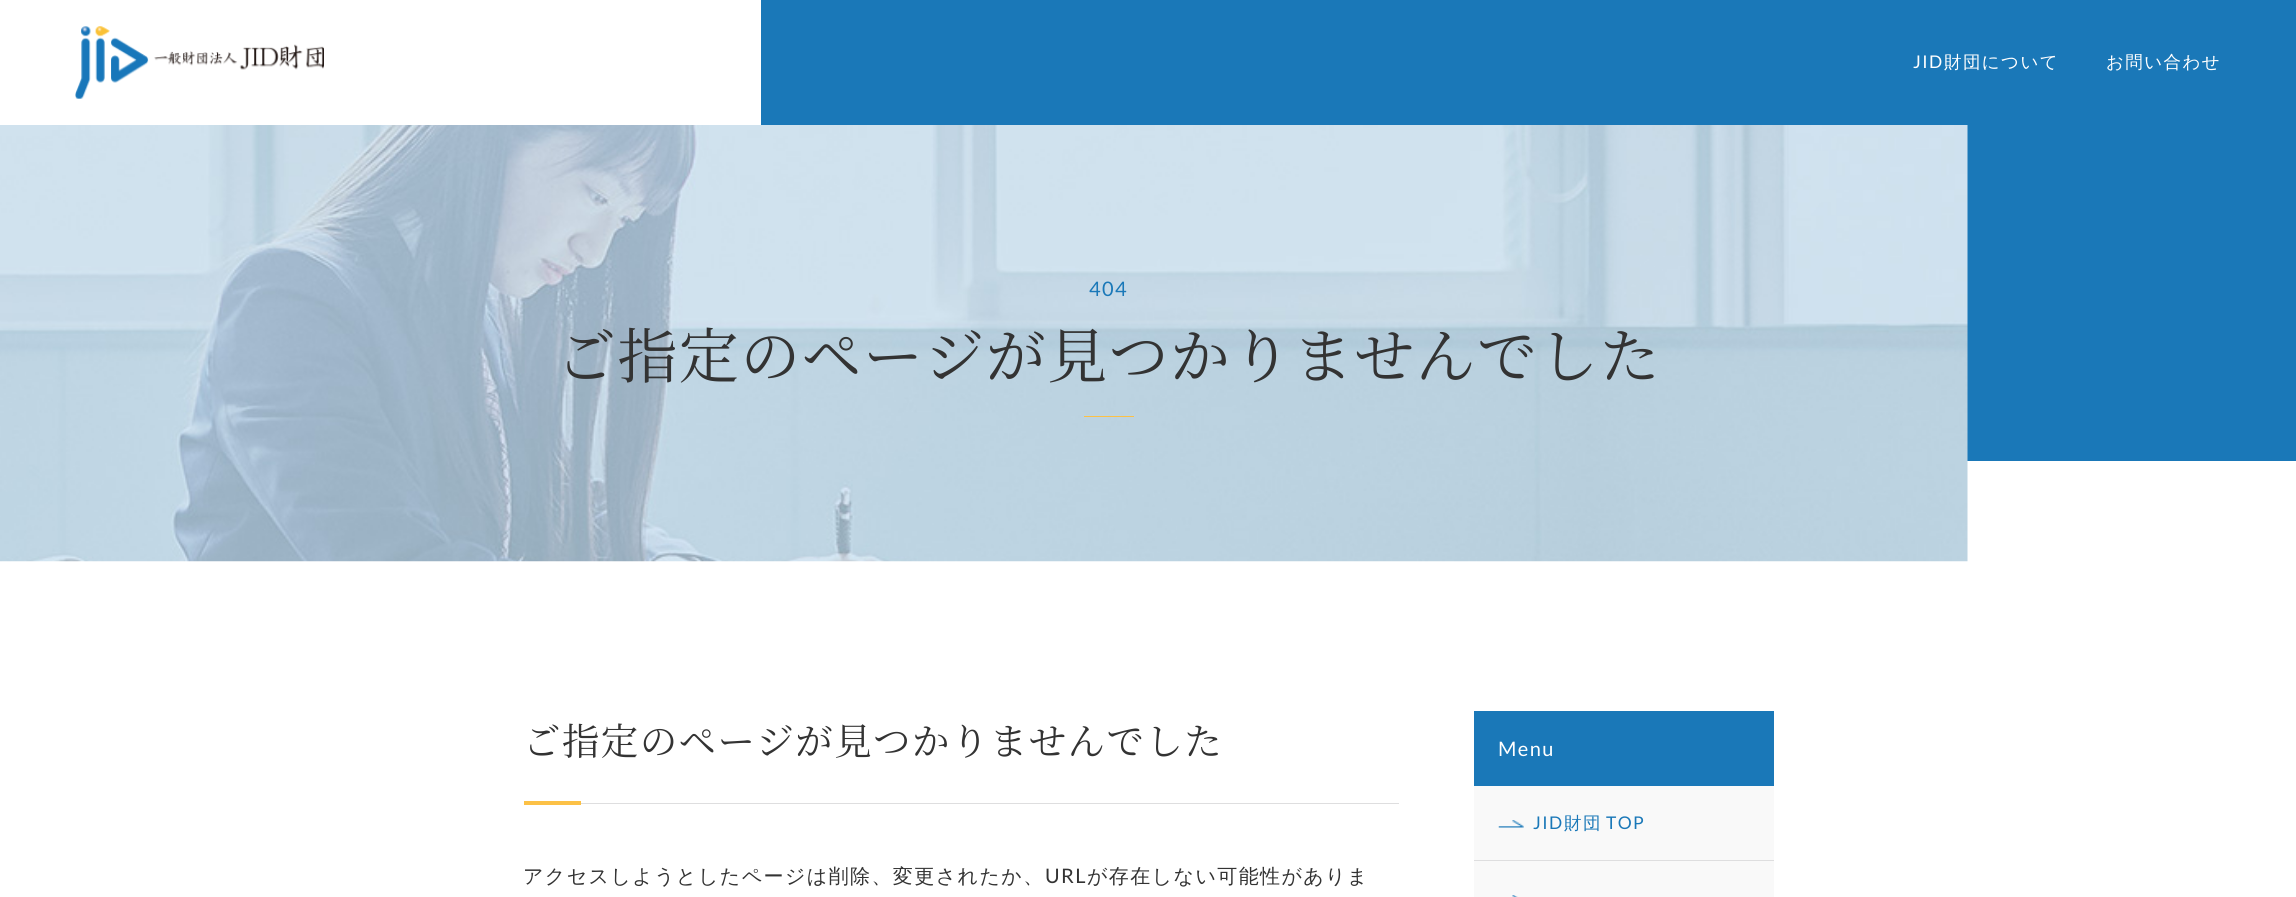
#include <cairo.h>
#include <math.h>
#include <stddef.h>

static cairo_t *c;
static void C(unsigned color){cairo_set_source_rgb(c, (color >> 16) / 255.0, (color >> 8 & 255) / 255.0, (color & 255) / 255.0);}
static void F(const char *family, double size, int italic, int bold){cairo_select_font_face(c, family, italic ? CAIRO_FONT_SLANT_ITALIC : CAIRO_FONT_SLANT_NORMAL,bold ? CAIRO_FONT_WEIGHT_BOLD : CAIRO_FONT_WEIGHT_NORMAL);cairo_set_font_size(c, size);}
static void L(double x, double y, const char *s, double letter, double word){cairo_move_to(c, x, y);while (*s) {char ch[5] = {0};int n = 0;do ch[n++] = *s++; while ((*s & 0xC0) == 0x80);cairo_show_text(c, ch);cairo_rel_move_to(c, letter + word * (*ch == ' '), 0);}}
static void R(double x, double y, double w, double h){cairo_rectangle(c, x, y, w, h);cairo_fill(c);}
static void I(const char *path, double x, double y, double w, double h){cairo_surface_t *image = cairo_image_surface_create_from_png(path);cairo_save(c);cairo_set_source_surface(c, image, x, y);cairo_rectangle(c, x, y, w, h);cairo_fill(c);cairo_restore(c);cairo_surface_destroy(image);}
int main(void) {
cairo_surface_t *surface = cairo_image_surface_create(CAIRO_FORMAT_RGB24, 2296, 897);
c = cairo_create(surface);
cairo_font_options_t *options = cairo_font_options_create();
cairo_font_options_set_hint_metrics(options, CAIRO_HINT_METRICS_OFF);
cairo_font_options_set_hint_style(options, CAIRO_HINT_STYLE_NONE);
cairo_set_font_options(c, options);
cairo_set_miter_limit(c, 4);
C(0xffffff);
cairo_paint(c);
C(0x1a78b8);
R(761,0,1535,125);
I("1.png",75,26,249,73);
F("Lato",17.5,0,0);
C(0xffffff);
L(1913,68,"JID",1.4,0);
F("WenQuanYi Zen Hei Medium",17.5,0,0);
L(1944,68,"財団について",1.4,0);
L(2106,68,"お問い合わせ",1.4,0);
C(0x1a78b8);
R(1967,125,329,336);
I("2.png",0,125,1968,437);
F("Lato",20,0,0);
L(1089,296,"404",1.4,0);
F("Noto Serif JP",60,0,0);
C(0x333333);
L(556,378,"ご指定のページが見つかりませんでした",1.4,0);
C(0xfcc146);
R(1084,416,50,1);
F("Noto Serif JP",37.5,0,0);
C(0x333333);
L(523,755,"ご指定のページが見つかりませんでした",1.4,0);
C(0xfcc146);
R(524,801,57,4);
C(0xdededf);
R(581,803,818,1);
F("WenQuanYi Zen Hei Medium",20,0,0);
C(0x333333);
L(523,883,"アクセスしようとしたページは削除、変更されたか、",1.4,0);
F("Lato",20,0,0);
L(1045,883,"URL",1.4,0);
F("WenQuanYi Zen Hei Medium",20,0,0);
L(1087,883,"が存在しない可能性がありま",1.4,0);
C(0x1a78b8);
R(1474,711,300,75);
F("Lato",20,0,0);
C(0xffffff);
L(1498,756,"Menu",1.4,0);
C(0xdededf);
R(1474,860,300,1);
C(0xf9f9f9);
R(1474,786,300,74);
I("3.png",1498,820,26,8);
F("Lato",17.5,0,0);
C(0x1a78b8);
L(1533,829,"JID",1.4,0);
F("WenQuanYi Zen Hei Medium",17.5,0,0);
L(1564,829,"財団",1.4,0);
F("Lato",17.5,0,0);
L(1606,829,"TOP",1.4,0);
C(0xf9f9f9);
R(1474,861,300,36);
I("4.png",1512,895,6,2);
cairo_surface_write_to_png(surface, "o.png");
cairo_font_options_destroy(options);
cairo_destroy(c);
cairo_surface_destroy(surface);
return 0;
}
